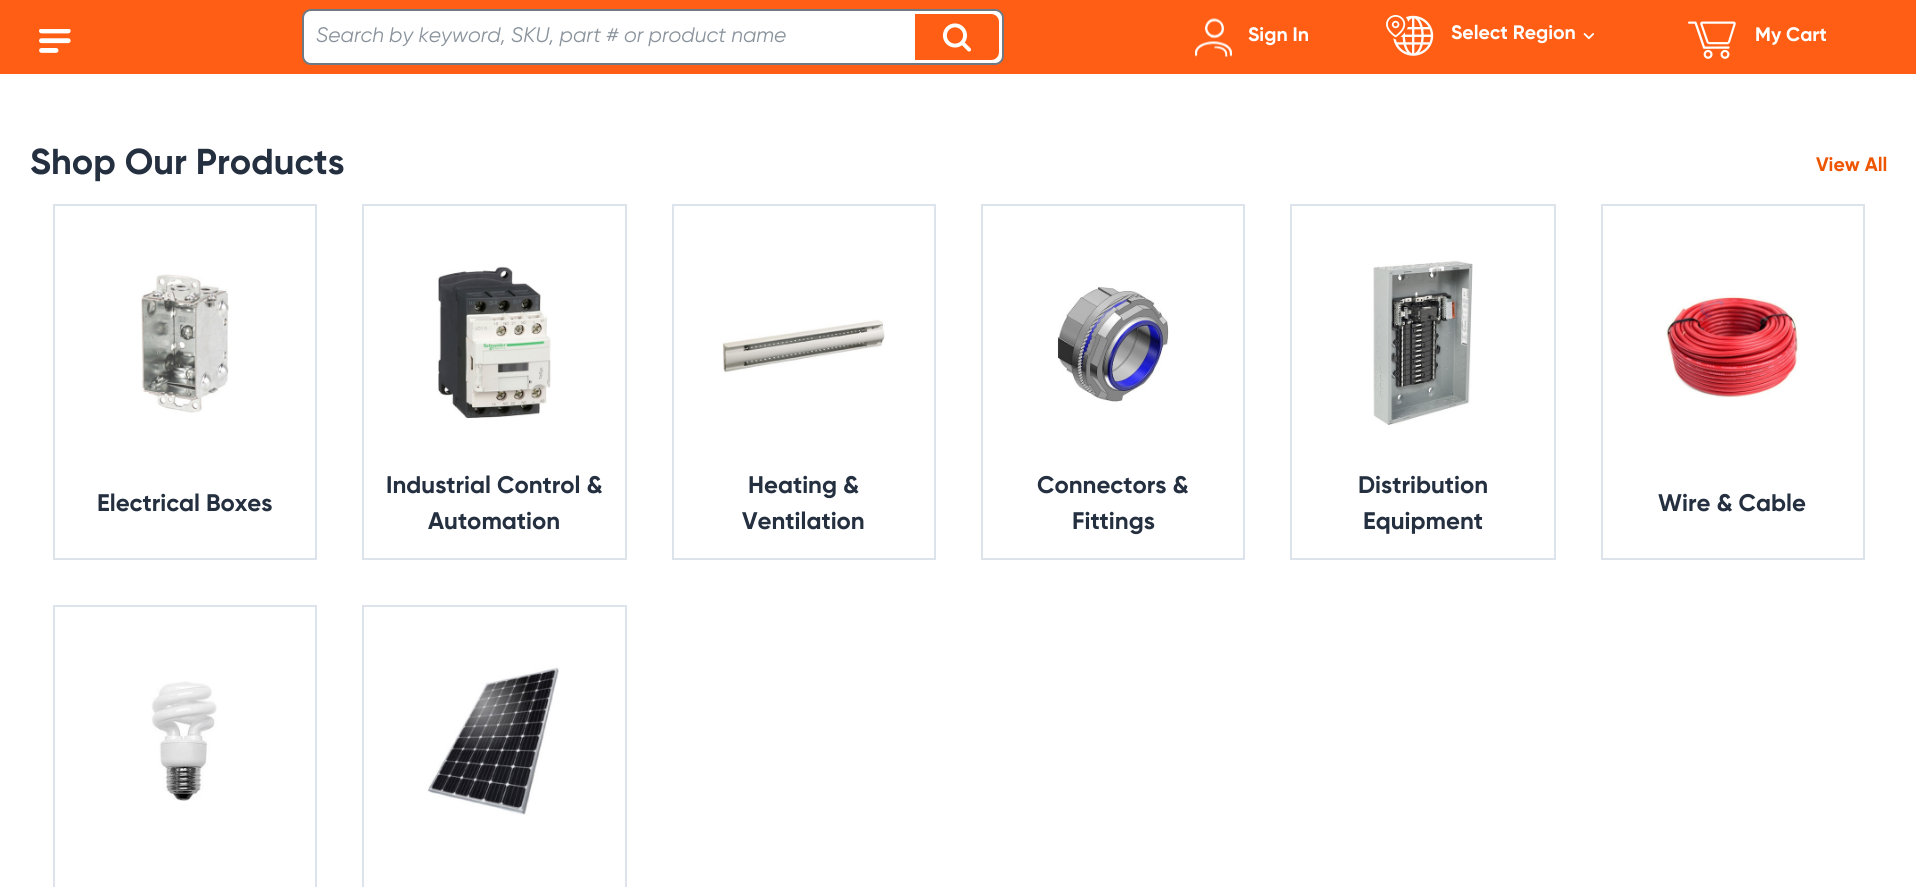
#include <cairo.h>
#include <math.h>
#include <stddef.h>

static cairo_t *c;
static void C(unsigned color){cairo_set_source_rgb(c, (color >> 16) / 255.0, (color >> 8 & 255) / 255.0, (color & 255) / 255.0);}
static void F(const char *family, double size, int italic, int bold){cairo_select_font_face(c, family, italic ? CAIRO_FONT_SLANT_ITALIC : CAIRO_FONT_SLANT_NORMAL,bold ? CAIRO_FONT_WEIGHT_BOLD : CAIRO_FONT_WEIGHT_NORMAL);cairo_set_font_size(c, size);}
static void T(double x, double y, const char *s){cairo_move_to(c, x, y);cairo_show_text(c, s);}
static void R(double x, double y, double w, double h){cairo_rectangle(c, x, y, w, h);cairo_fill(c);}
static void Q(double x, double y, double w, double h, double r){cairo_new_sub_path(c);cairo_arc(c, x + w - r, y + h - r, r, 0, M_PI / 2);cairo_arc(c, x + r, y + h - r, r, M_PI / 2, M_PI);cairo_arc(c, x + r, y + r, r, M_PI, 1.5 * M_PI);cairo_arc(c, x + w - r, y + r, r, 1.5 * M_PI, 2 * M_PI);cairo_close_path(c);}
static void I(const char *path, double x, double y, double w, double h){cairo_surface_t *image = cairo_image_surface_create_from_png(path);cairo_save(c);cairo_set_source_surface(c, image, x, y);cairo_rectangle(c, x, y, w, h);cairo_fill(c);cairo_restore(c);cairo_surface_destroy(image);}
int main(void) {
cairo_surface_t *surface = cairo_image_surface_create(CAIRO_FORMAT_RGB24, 1916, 887);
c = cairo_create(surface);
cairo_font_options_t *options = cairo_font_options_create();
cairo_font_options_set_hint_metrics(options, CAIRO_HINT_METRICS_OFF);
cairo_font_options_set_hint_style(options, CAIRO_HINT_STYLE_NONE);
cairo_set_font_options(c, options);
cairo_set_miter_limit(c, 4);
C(0xffffff);
cairo_paint(c);
C(0xff5e14);
R(0,0,1916,74);
I("1.png",39,29,32,24);
C(0xffffff);
Q(303,10,700,54,8);
cairo_fill_preserve(c);
C(0x6f7984);
cairo_stroke(c);
F("Gilroy",21,1,0);
C(0x8a939c);
T(316,42,"Search by keyword, SKU, part # or product name");
C(0xff5e14);
cairo_new_path(c);
cairo_move_to(c,915,14);
cairo_line_to(c,991,14);
cairo_curve_to(c,995.5,14,999,17.5,999,22);
cairo_line_to(c,999,52);
cairo_curve_to(c,999,56.5,995.5,60,991,60);
cairo_line_to(c,915,60);
cairo_close_path(c);
cairo_fill(c);
I("2.png",942,23,30,29);
I("3.png",1195,18,37,40);
F("Gilroy",19.5,0,1);
C(0xffffff);
T(1248,41,"Sign In");
I("4.png",1386,15,48,41);
T(1451,39,"Select Region");
I("5.png",1583,33,12,7);
I("6.png",1688,21,48,38);
T(1755,41,"My Cart");
F("Gilroy",36,0,1);
C(0x242f40);
T(30,174,"Shop Our Products");
F("Gilroy",19.5,0,1);
C(0xed5500);
T(1816,171,"View All");
cairo_rectangle(c,54,205,262,354);
C(0xdce3eb);
cairo_stroke(c);
I("7.png",141,274,88,139);
F("Gilroy",24,0,1);
C(0x242f40);
T(97,511,"Electrical Boxes");
cairo_rectangle(c,363,205,263,354);
C(0xdce3eb);
cairo_stroke(c);
I("8.png",436,266,115,153);
C(0x242f40);
T(386,493,"Industrial Control &");
T(428,529,"Automation");
cairo_rectangle(c,673,205,262,354);
C(0xdce3eb);
cairo_stroke(c);
I("9.png",722,319,163,54);
C(0x242f40);
T(748,493,"Heating &");
T(742,529,"Ventilation");
cairo_rectangle(c,982,205,262,354);
C(0xdce3eb);
cairo_stroke(c);
I("10.png",1057,286,112,116);
C(0x242f40);
T(1037,493,"Connectors &");
T(1072,529,"Fittings");
cairo_rectangle(c,1291,205,264,354);
C(0xdce3eb);
cairo_stroke(c);
I("11.png",1373,260,100,165);
C(0x242f40);
T(1358,493,"Distribution");
T(1363,529,"Equipment");
cairo_rectangle(c,1602,205,262,354);
C(0xdce3eb);
cairo_stroke(c);
I("12.png",1666,294,134,104);
C(0x242f40);
T(1658,511,"Wire & Cable");
cairo_rectangle(c,54,606,262,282);
C(0xdce3eb);
cairo_stroke(c);
I("13.png",151,681,66,120);
cairo_rectangle(c,363,606,263,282);
cairo_stroke(c);
I("14.png",427,667,132,148);
cairo_surface_write_to_png(surface, "o.png");
cairo_font_options_destroy(options);
cairo_destroy(c);
cairo_surface_destroy(surface);
return 0;
}
